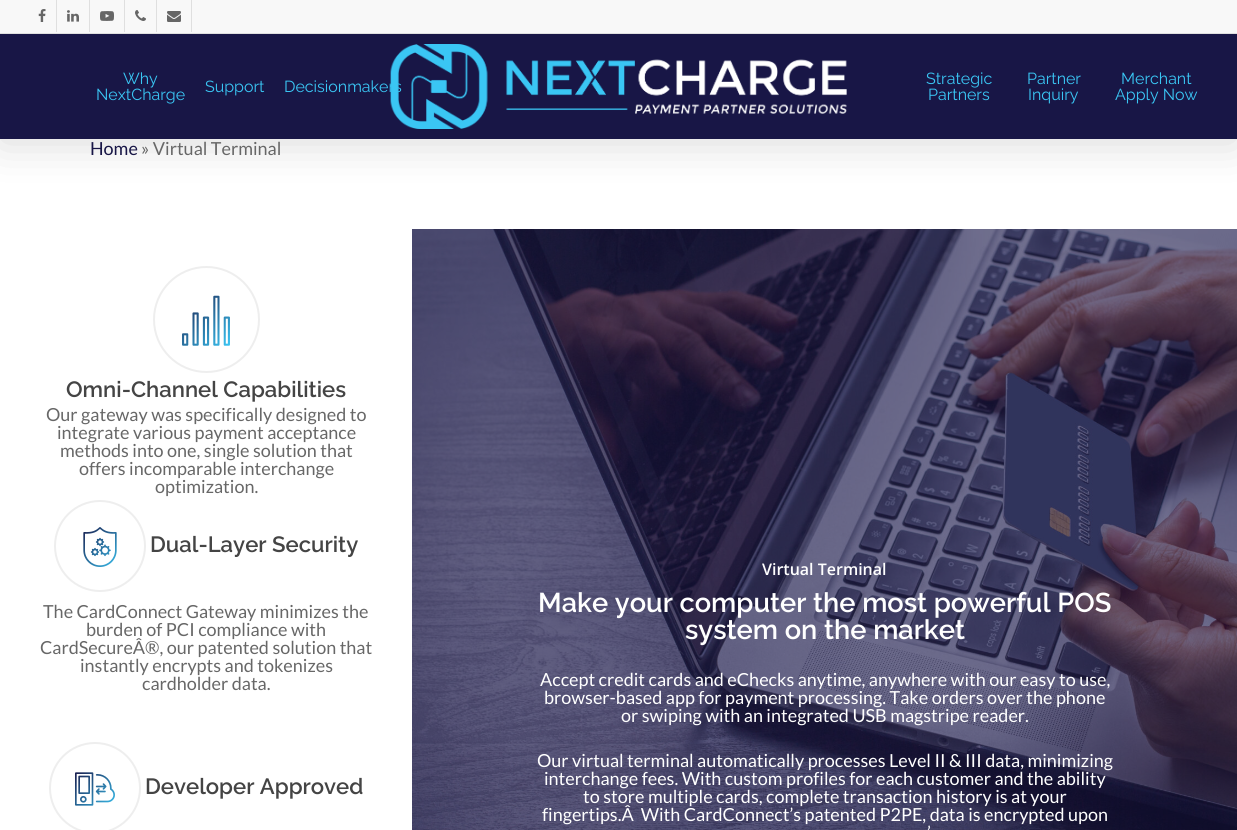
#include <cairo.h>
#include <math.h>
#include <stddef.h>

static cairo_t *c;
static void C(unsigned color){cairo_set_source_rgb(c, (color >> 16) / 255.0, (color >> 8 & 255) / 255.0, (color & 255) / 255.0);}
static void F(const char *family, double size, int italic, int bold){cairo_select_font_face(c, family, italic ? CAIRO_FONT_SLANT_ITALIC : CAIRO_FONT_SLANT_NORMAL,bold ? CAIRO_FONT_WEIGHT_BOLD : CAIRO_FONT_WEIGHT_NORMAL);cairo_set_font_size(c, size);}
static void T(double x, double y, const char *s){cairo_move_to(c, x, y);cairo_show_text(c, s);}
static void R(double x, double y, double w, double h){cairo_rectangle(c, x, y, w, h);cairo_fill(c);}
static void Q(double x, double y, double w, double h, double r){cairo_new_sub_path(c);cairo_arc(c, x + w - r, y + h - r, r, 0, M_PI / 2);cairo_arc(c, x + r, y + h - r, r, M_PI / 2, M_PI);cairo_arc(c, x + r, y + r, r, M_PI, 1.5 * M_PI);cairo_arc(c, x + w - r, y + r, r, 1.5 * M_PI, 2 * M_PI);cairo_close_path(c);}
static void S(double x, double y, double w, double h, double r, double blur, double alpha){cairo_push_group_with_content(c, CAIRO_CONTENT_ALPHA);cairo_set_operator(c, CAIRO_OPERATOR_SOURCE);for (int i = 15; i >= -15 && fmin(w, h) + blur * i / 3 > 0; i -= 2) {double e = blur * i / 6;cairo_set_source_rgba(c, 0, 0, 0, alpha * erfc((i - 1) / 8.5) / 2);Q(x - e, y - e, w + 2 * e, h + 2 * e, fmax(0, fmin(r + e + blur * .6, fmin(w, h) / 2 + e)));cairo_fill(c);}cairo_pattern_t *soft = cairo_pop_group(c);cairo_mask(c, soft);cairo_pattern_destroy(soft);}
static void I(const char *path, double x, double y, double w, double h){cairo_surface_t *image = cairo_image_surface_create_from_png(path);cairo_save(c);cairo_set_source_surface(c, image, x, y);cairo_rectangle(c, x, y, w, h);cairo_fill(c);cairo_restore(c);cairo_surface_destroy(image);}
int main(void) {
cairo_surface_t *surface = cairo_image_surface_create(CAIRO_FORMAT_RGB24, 1237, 830);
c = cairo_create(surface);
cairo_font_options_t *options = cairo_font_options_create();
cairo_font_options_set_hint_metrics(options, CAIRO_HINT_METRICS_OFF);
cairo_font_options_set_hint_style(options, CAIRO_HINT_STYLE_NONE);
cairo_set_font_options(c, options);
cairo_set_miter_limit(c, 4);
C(0xffffff);
cairo_paint(c);
C(0x000000);
S(0,3,1237,139,0,22.5,.15);
C(0x181646);
R(0,34,1237,105);
C(0xf8f8f8);
R(0,0,1237,33);
C(0xdfdfdf);
R(0,33,1237,1);
I("1.png",38,9,8,13);
R(56,0,1,32);
I("2.png",67,10,12,12);
R(89,0,1,32);
I("3.png",100,11,14,10);
R(124,0,1,32);
I("4.png",135,10,11,11);
R(191,0,1,32);
R(156,0,1,32);
I("5.png",167,11,14,11);
F("Raleway",16,0,0);
C(0x3ac6f4);
T(284,92,"Decisionmakers");
I("6.png",390,44,457,85);
T(123,84,"Why");
T(96,100,"NextCharge");
T(205,92,"Support");
T(926,84,"Strategic");
T(928,100,"Partners");
T(1027,84,"Partner");
T(1028,100,"Inquiry");
T(1121,84,"Merchant");
T(1115,100,"Apply Now");
F("Lato",18,0,0);
C(0x181646);
T(90,155,"Home");
C(0x676767);
T(141,155,"» Virtual Terminal");
cairo_new_path(c);
cairo_arc(c,206.5,319.5,52.5,0,2 * M_PI);
C(0xeeeeee);
cairo_stroke(c);
I("7.png",182,295,48,51);
F("Raleway SemiBold",22.1,0,0);
C(0x444444);
T(66,397,"Omni-Channel Capabilities");
F("Lato",18,0,0);
C(0x676767);
T(46,421,"Our gateway was specifically designed to");
T(57,439,"integrate various payment acceptance");
T(60,457,"methods into one, single solution that");
T(79,475,"offers incomparable interchange");
T(155,493,"optimization.");
cairo_new_path(c);
cairo_arc(c,100,546,45,0,2 * M_PI);
C(0xeeeeee);
cairo_stroke(c);
I("8.png",83,527,34,40);
F("Raleway SemiBold",22.1,0,0);
C(0x444444);
T(150,552,"Dual-Layer Security");
F("Lato",18,0,0);
C(0x676767);
T(43,618,"The CardConnect Gateway minimizes the");
T(86,636,"burden of PCI compliance with");
T(40,654,"CardSecureÂ®, our patented solution that");
T(80,672,"instantly encrypts and tokenizes");
T(142,690,"cardholder data.");
cairo_new_path(c);
cairo_arc(c,95,788,45,0,2 * M_PI);
C(0xeeeeee);
cairo_stroke(c);
I("9.png",75,772,40,34);
F("Raleway SemiBold",22.1,0,0);
C(0x444444);
T(145,794,"Developer Approved");
I("10.png",412,229,825,601);
F("Open Sans SemiBold",16,0,0);
C(0xffffff);
T(762,575,"Virtual Terminal");
F("Raleway SemiBold",27.2,0,0);
T(538,612,"Make your computer the most powerful POS");
T(685,639,"system on the market");
F("Lato",18,0,0);
T(540,686,"Accept credit cards and eChecks anytime, anywhere with our easy to use,");
T(544,704,"browser-based app for payment processing. Take orders over the phone");
T(621,722,"or swiping with an integrated USB magstripe reader.");
T(537,767,"Our virtual terminal automatically processes Level II & III data, minimizing");
T(544,785,"interchange fees. With custom profiles for each customer and the ability");
T(583,803,"to store multiple cards, complete transaction history is at your");
T(542,821,"fingertips.Â  With CardConnect’s patented P2PE, data is encrypted upon");
T(927,839,"’");
cairo_surface_write_to_png(surface, "o.png");
cairo_font_options_destroy(options);
cairo_destroy(c);
cairo_surface_destroy(surface);
return 0;
}
